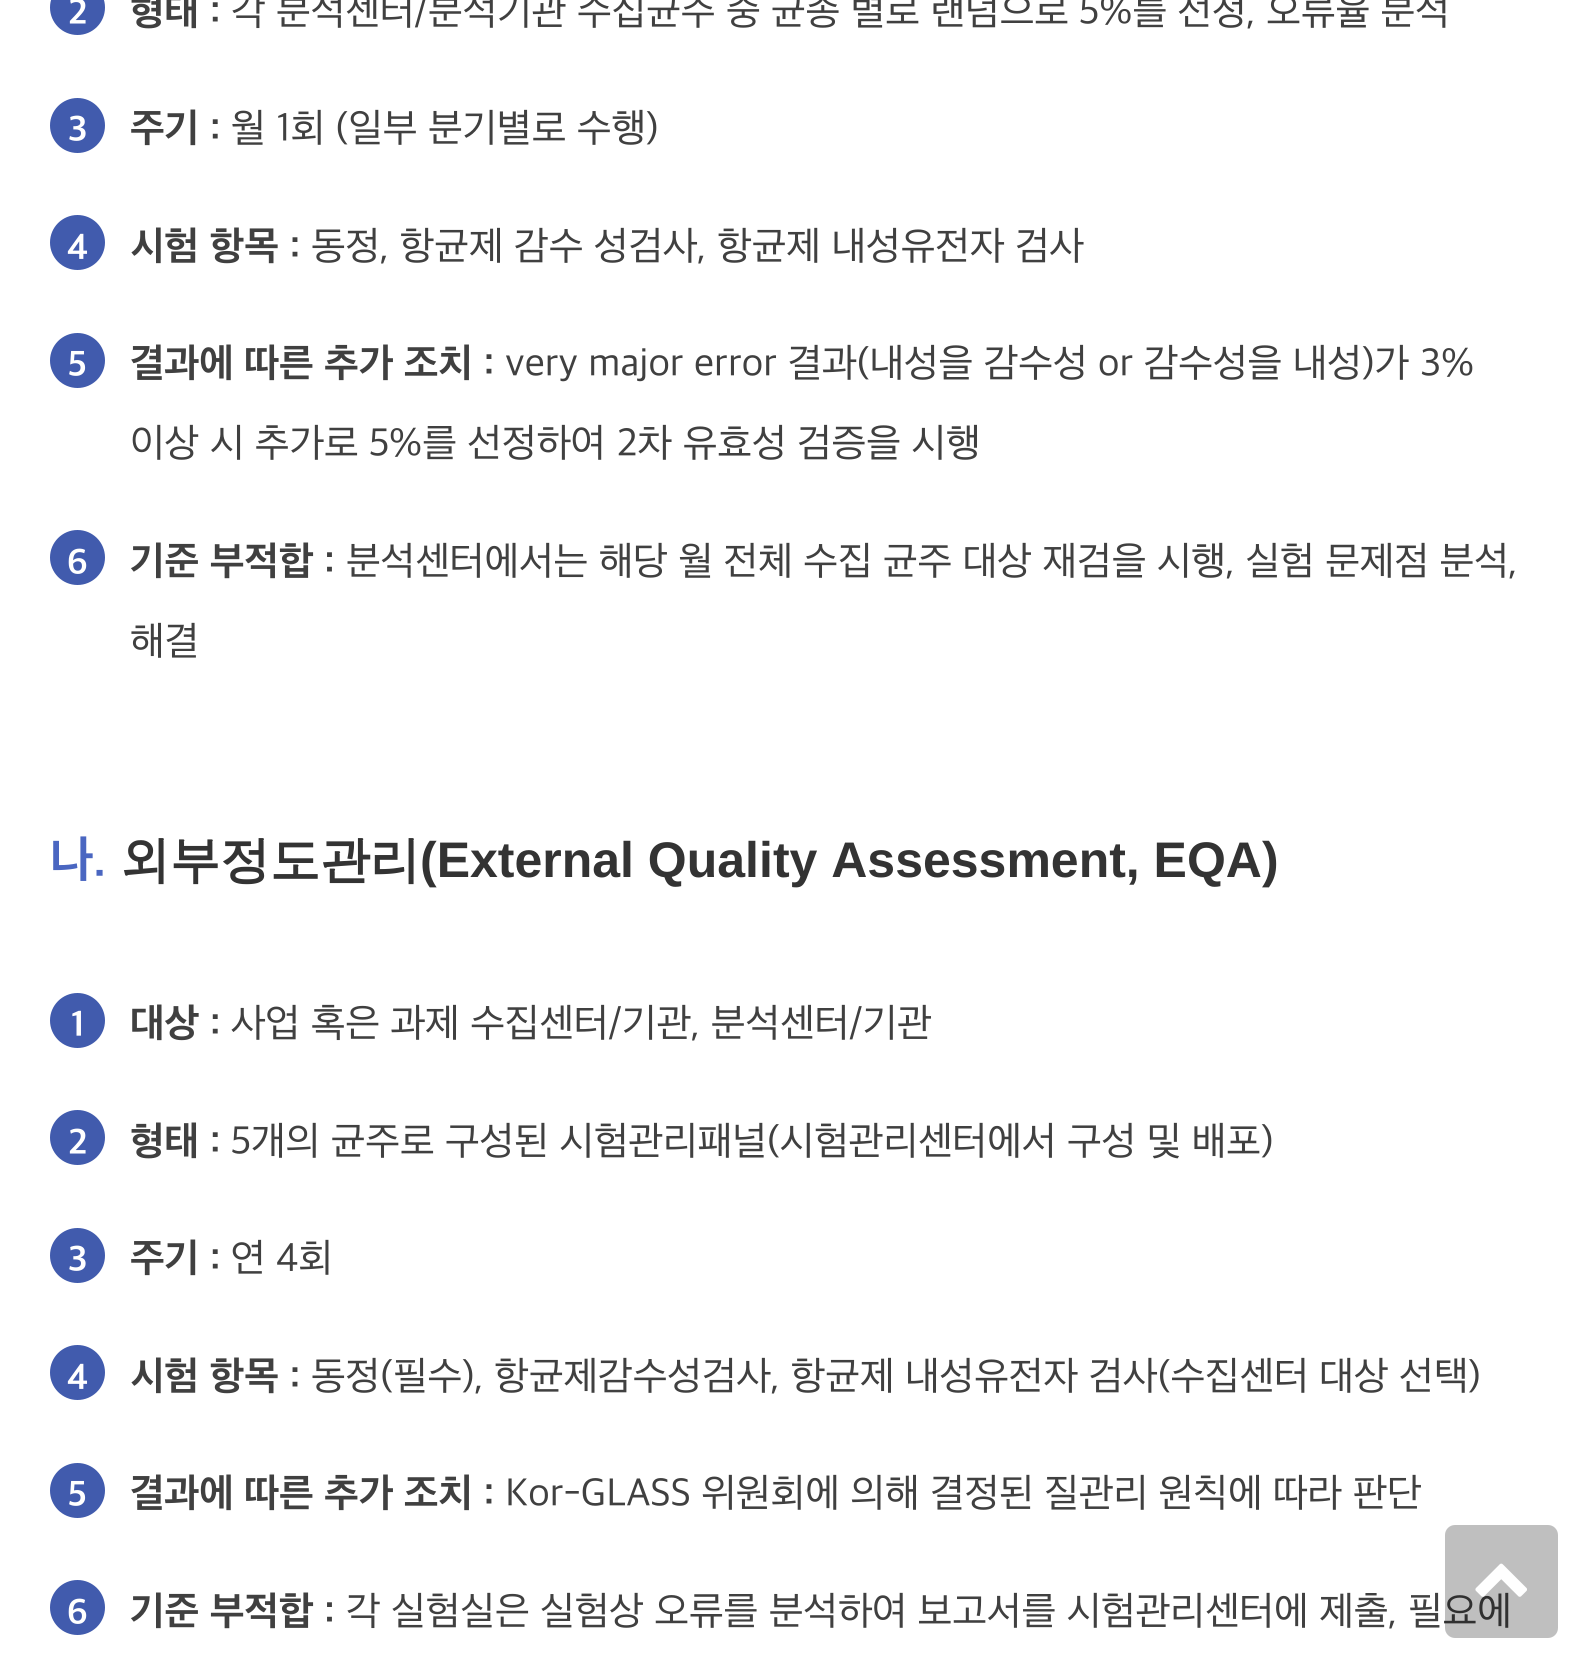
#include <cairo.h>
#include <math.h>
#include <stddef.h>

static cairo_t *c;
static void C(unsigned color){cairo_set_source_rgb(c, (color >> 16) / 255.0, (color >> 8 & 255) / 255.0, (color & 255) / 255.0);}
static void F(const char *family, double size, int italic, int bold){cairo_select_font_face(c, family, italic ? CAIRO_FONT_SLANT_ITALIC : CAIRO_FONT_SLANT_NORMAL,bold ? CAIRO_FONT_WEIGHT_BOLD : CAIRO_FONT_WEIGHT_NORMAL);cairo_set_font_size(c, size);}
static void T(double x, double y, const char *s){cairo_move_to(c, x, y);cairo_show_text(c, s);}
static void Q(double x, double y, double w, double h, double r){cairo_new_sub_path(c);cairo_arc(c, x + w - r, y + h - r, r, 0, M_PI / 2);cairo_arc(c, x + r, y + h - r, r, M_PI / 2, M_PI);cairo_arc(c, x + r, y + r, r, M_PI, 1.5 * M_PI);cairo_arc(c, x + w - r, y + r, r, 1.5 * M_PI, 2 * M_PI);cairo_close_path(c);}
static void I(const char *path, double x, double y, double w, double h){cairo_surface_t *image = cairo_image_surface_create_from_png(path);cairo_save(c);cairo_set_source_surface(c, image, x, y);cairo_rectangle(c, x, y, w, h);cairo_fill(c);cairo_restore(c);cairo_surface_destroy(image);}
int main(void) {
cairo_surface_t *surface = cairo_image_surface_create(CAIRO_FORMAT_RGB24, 1593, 1662);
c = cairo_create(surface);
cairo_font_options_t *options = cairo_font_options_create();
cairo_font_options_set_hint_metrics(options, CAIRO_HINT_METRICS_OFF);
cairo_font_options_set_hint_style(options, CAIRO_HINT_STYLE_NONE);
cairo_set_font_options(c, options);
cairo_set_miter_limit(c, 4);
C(0xffffff);
cairo_paint(c);
C(0x415bad);
cairo_arc(c,77.5,7.5,27.5,0,2 * M_PI);
cairo_fill(c);
F("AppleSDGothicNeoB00",36,0,0);
C(0xffffff);
T(68,25,"2");
F("AppleSDGothicNeoB00",40,0,0);
C(0x404040);
T(130,25,"형태 :");
F("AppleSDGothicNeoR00",40,0,0);
T(231,25,"각 분석센터/분석기관 수집균주 중 균종 별로 랜덤으로 5%를 선정, 오류율 분석");
C(0x415bad);
cairo_new_path(c);
cairo_arc(c,77.5,125.5,27.5,0,2 * M_PI);
cairo_fill(c);
F("AppleSDGothicNeoB00",36,0,0);
C(0xffffff);
T(68,142,"3");
F("AppleSDGothicNeoB00",40,0,0);
C(0x404040);
T(130,142,"주기 :");
F("AppleSDGothicNeoR00",40,0,0);
T(231,142,"월 1회 (일부 분기별로 수행)");
C(0x415bad);
cairo_new_path(c);
cairo_arc(c,77.5,242.5,27.5,0,2 * M_PI);
cairo_fill(c);
F("AppleSDGothicNeoB00",36,0,0);
C(0xffffff);
T(67,260,"4");
F("AppleSDGothicNeoB00",40,0,0);
C(0x404040);
T(130,260,"시험 항목 :");
F("AppleSDGothicNeoR00",40,0,0);
T(311,260,"동정, 항균제 감수 성검사, 항균제 내성유전자 검사");
C(0x415bad);
cairo_new_path(c);
cairo_arc(c,77.5,360.5,27.5,0,2 * M_PI);
cairo_fill(c);
F("AppleSDGothicNeoB00",36,0,0);
C(0xffffff);
T(68,377,"5");
F("AppleSDGothicNeoB00",40,0,0);
C(0x404040);
T(130,377,"결과에 따른 추가 조치 :");
F("AppleSDGothicNeoR00",40,0,0);
T(505,377,"very major error 결과(내성을 감수성 or 감수성을 내성)가 3%");
T(130,457,"이상 시 추가로 5%를 선정하여 2차 유효성 검증을 시행");
C(0x415bad);
cairo_new_path(c);
cairo_arc(c,77.5,557.5,27.5,0,2 * M_PI);
cairo_fill(c);
F("AppleSDGothicNeoB00",36,0,0);
C(0xffffff);
T(67,575,"6");
F("AppleSDGothicNeoB00",40,0,0);
C(0x404040);
T(130,575,"기준 부적합 :");
F("AppleSDGothicNeoR00",40,0,0);
T(346,575,"분석센터에서는 해당 월 전체 수집 균주 대상 재검을 시행, 실험 문제점 분석,");
T(130,655,"해결");
F("AppleSDGothicNeoB00",50,0,0);
C(0x4a66c1);
T(50,877,"나.");
F("WenQuanYi Zen Hei",50,0,1);
C(0x333333);
T(120,877,"외부정도관리");
F("Liberation Sans",50,0,1);
T(420,877,"(External Quality Assessment, EQA)");
C(0x415bad);
cairo_new_path(c);
cairo_arc(c,77.5,1020.5,27.5,0,2 * M_PI);
cairo_fill(c);
F("AppleSDGothicNeoB00",36,0,0);
C(0xffffff);
T(71,1037,"1");
F("AppleSDGothicNeoB00",40,0,0);
C(0x404040);
T(130,1037,"대상 :");
F("AppleSDGothicNeoR00",40,0,0);
T(231,1037,"사업 혹은 과제 수집센터/기관, 분석센터/기관");
C(0x415bad);
cairo_new_path(c);
cairo_arc(c,77.5,1137.5,27.5,0,2 * M_PI);
cairo_fill(c);
F("AppleSDGothicNeoB00",36,0,0);
C(0xffffff);
T(68,1155,"2");
F("AppleSDGothicNeoB00",40,0,0);
C(0x404040);
T(130,1155,"형태 :");
F("AppleSDGothicNeoR00",40,0,0);
T(231,1155,"5개의 균주로 구성된 시험관리패널(시험관리센터에서 구성 및 배포)");
C(0x415bad);
cairo_new_path(c);
cairo_arc(c,77.5,1255.5,27.5,0,2 * M_PI);
cairo_fill(c);
F("AppleSDGothicNeoB00",36,0,0);
C(0xffffff);
T(68,1272,"3");
F("AppleSDGothicNeoB00",40,0,0);
C(0x404040);
T(130,1272,"주기 :");
F("AppleSDGothicNeoR00",40,0,0);
T(231,1272,"연 4회");
C(0x415bad);
cairo_new_path(c);
cairo_arc(c,77.5,1372.5,27.5,0,2 * M_PI);
cairo_fill(c);
F("AppleSDGothicNeoB00",36,0,0);
C(0xffffff);
T(67,1390,"4");
F("AppleSDGothicNeoB00",40,0,0);
C(0x404040);
T(130,1390,"시험 항목 :");
F("AppleSDGothicNeoR00",40,0,0);
T(311,1390,"동정(필수), 항균제감수성검사, 항균제 내성유전자 검사(수집센터 대상 선택)");
C(0x415bad);
cairo_new_path(c);
cairo_arc(c,77.5,1490.5,27.5,0,2 * M_PI);
cairo_fill(c);
F("AppleSDGothicNeoB00",36,0,0);
C(0xffffff);
T(68,1507,"5");
F("AppleSDGothicNeoB00",40,0,0);
C(0x404040);
T(130,1507,"결과에 따른 추가 조치 :");
F("AppleSDGothicNeoR00",40,0,0);
T(505,1507,"Kor-GLASS 위원회에 의해 결정된 질관리 원칙에 따라 판단");
C(0x415bad);
cairo_new_path(c);
cairo_arc(c,77.5,1607.5,27.5,0,2 * M_PI);
cairo_fill(c);
F("AppleSDGothicNeoB00",36,0,0);
C(0xffffff);
T(67,1625,"6");
F("AppleSDGothicNeoB00",40,0,0);
C(0x404040);
T(130,1625,"기준 부적합 :");
F("AppleSDGothicNeoR00",40,0,0);
T(346,1625,"각 실험실은 실험상 오류를 분석하여 보고서를 시험관리센터에 제출, 필요에");
cairo_set_source_rgba(c,0,0,0,0.25);
Q(1445,1525,113,113,10);
cairo_fill(c);
I("1.png",1475,1563,52,34);
cairo_surface_write_to_png(surface, "o.png");
cairo_font_options_destroy(options);
cairo_destroy(c);
cairo_surface_destroy(surface);
return 0;
}
